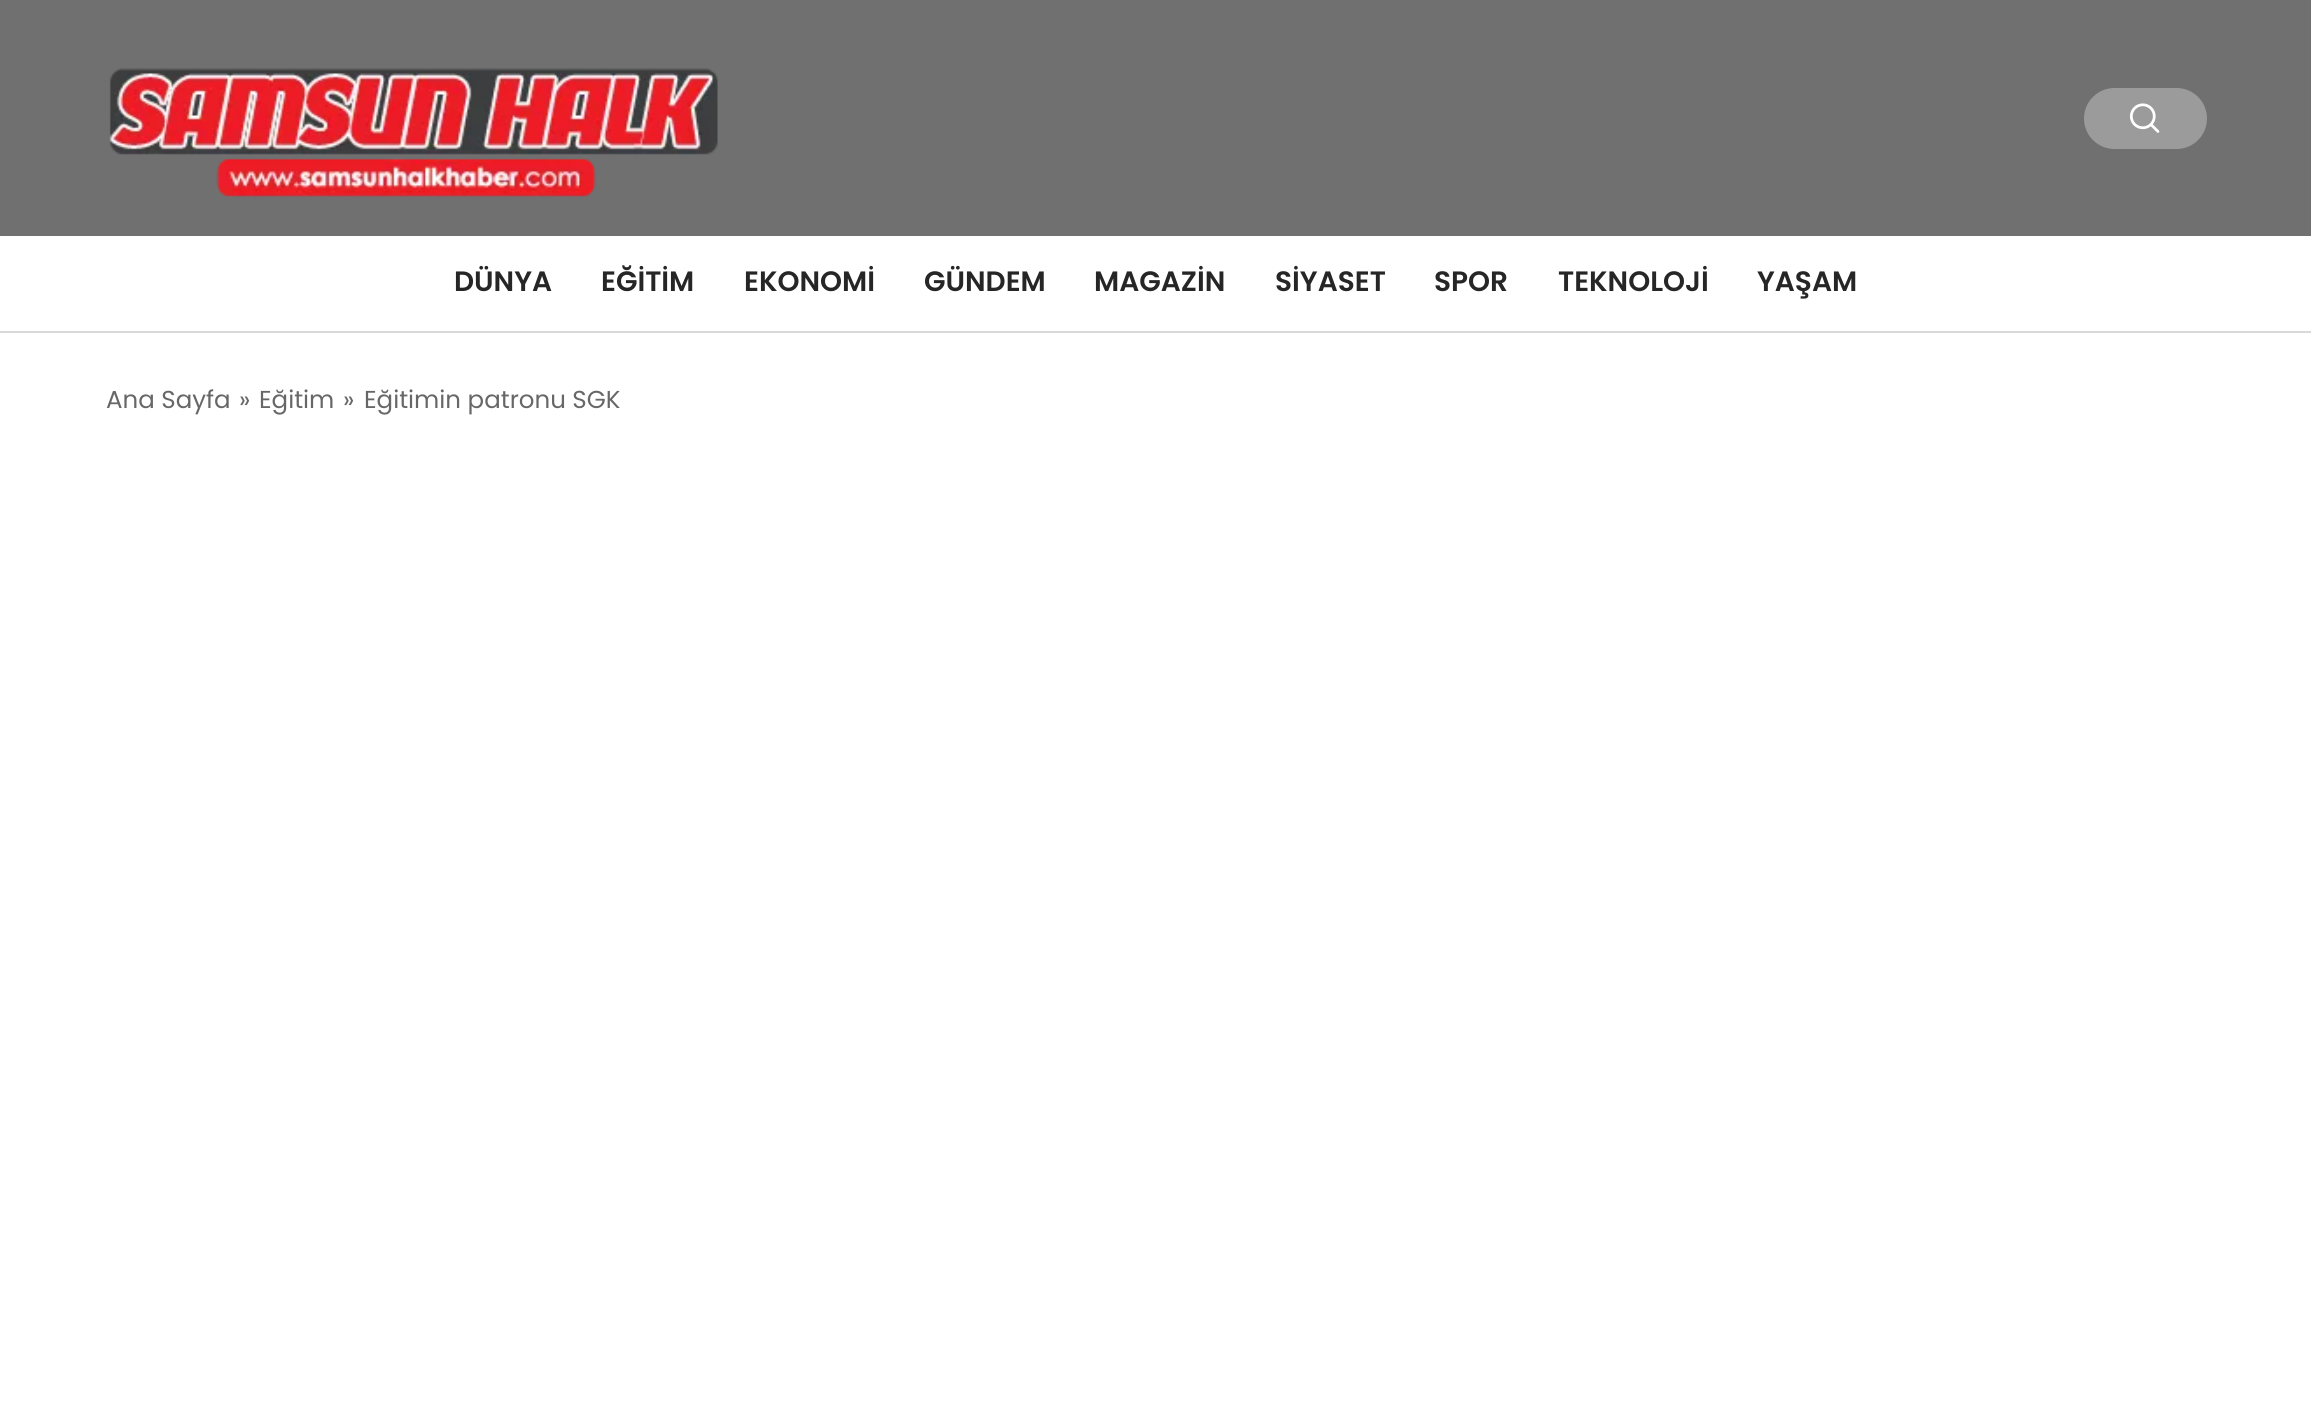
#include <cairo.h>
#include <math.h>
#include <stddef.h>

static cairo_t *c;
static void C(unsigned color){cairo_set_source_rgb(c, (color >> 16) / 255.0, (color >> 8 & 255) / 255.0, (color & 255) / 255.0);}
static void F(const char *family, double size, int italic, int bold){cairo_select_font_face(c, family, italic ? CAIRO_FONT_SLANT_ITALIC : CAIRO_FONT_SLANT_NORMAL,bold ? CAIRO_FONT_WEIGHT_BOLD : CAIRO_FONT_WEIGHT_NORMAL);cairo_set_font_size(c, size);}
static void T(double x, double y, const char *s){cairo_move_to(c, x, y);cairo_show_text(c, s);}
static void R(double x, double y, double w, double h){cairo_rectangle(c, x, y, w, h);cairo_fill(c);}
static void Q(double x, double y, double w, double h, double r){cairo_new_sub_path(c);cairo_arc(c, x + w - r, y + h - r, r, 0, M_PI / 2);cairo_arc(c, x + r, y + h - r, r, M_PI / 2, M_PI);cairo_arc(c, x + r, y + r, r, M_PI, 1.5 * M_PI);cairo_arc(c, x + w - r, y + r, r, 1.5 * M_PI, 2 * M_PI);cairo_close_path(c);}
static void I(const char *path, double x, double y, double w, double h){cairo_surface_t *image = cairo_image_surface_create_from_png(path);cairo_save(c);cairo_set_source_surface(c, image, x, y);cairo_rectangle(c, x, y, w, h);cairo_fill(c);cairo_restore(c);cairo_surface_destroy(image);}
int main(void) {
cairo_surface_t *surface = cairo_image_surface_create(CAIRO_FORMAT_RGB24, 2311, 1428);
c = cairo_create(surface);
cairo_font_options_t *options = cairo_font_options_create();
cairo_font_options_set_hint_metrics(options, CAIRO_HINT_METRICS_OFF);
cairo_font_options_set_hint_style(options, CAIRO_HINT_STYLE_NONE);
cairo_set_font_options(c, options);
cairo_set_miter_limit(c, 4);
C(0xffffff);
cairo_paint(c);
C(0x707070);
R(0,0,2311,236);
I("1.png",109,68,609,129);
C(0x9b9b9b);
Q(2084,88,123,61,30.5);
cairo_fill(c);
I("2.png",2129,103,31,30);
C(0xd9d9d9);
R(0,331,2311,2);
F("Poppins SemiBold",28,0,0);
C(0x262626);
T(454,291,"DÜNYA");
T(601,291,"EĞİTİM");
T(744,291,"EKONOMİ");
T(924,291,"GÜNDEM");
T(1094,291,"MAGAZİN");
T(1275,291,"SİYASET");
T(1434,291,"SPOR");
T(1558,291,"TEKNOLOJİ");
T(1757,291,"YAŞAM");
F("Poppins",24.5,0,0);
C(0x676767);
T(106,408,"Ana Sayfa");
T(239,408,"»");
T(259,408,"Eğitim");
T(343,408,"»");
T(364,408,"Eğitimin patronu SGK");
cairo_surface_write_to_png(surface, "o.png");
cairo_font_options_destroy(options);
cairo_destroy(c);
cairo_surface_destroy(surface);
return 0;
}
